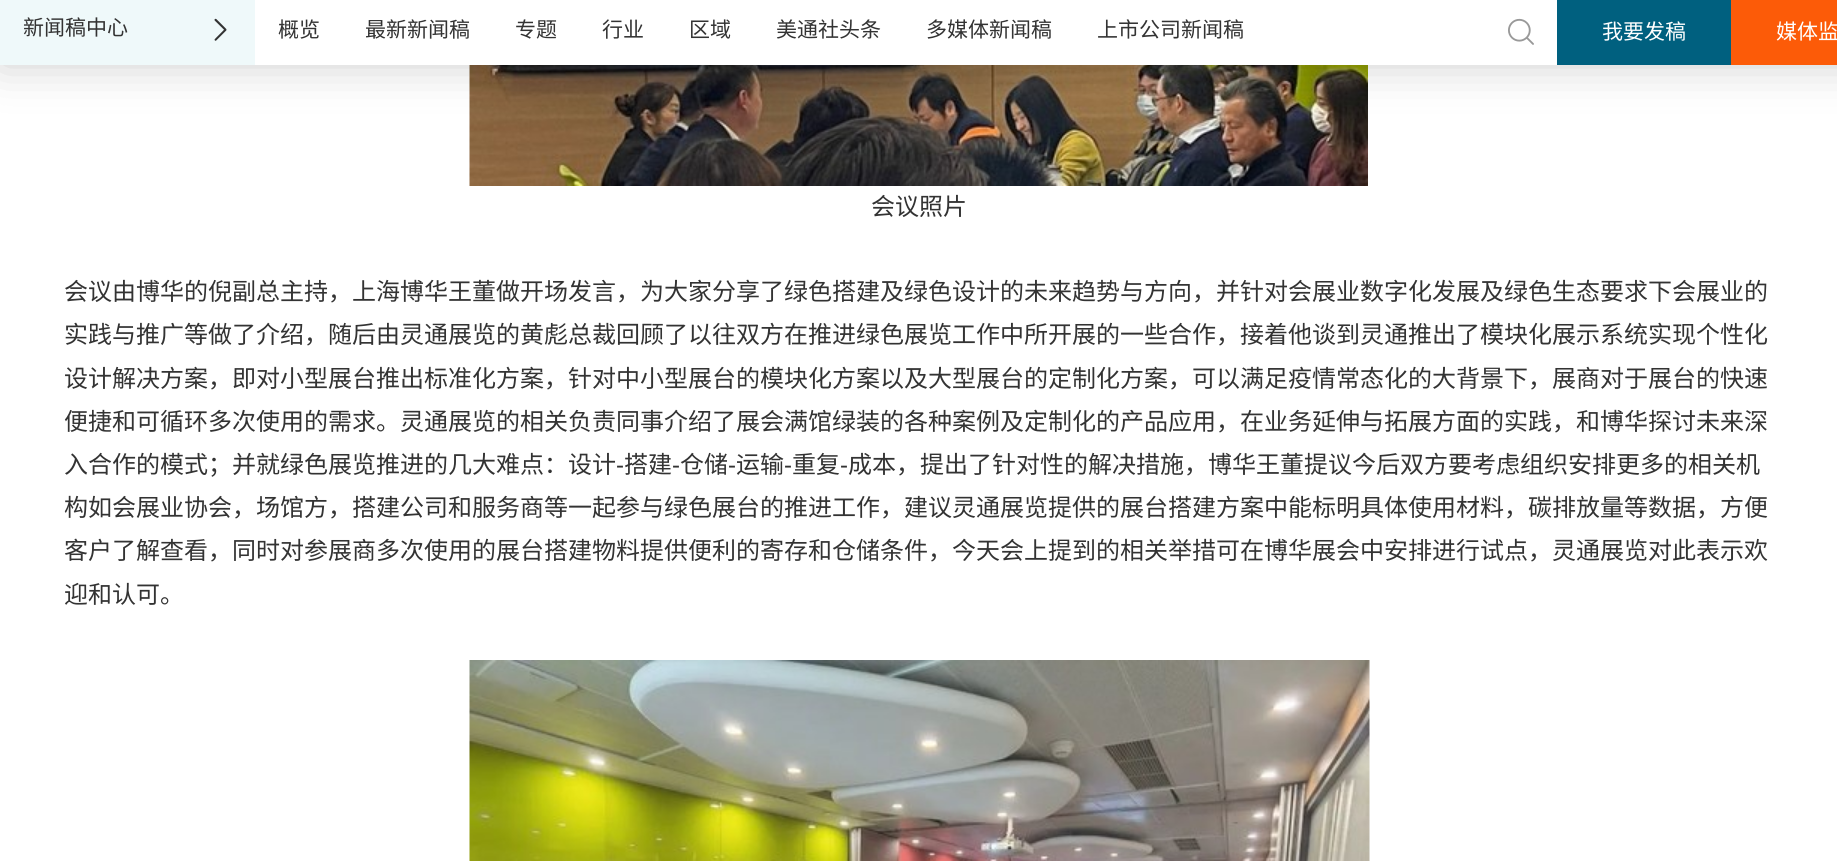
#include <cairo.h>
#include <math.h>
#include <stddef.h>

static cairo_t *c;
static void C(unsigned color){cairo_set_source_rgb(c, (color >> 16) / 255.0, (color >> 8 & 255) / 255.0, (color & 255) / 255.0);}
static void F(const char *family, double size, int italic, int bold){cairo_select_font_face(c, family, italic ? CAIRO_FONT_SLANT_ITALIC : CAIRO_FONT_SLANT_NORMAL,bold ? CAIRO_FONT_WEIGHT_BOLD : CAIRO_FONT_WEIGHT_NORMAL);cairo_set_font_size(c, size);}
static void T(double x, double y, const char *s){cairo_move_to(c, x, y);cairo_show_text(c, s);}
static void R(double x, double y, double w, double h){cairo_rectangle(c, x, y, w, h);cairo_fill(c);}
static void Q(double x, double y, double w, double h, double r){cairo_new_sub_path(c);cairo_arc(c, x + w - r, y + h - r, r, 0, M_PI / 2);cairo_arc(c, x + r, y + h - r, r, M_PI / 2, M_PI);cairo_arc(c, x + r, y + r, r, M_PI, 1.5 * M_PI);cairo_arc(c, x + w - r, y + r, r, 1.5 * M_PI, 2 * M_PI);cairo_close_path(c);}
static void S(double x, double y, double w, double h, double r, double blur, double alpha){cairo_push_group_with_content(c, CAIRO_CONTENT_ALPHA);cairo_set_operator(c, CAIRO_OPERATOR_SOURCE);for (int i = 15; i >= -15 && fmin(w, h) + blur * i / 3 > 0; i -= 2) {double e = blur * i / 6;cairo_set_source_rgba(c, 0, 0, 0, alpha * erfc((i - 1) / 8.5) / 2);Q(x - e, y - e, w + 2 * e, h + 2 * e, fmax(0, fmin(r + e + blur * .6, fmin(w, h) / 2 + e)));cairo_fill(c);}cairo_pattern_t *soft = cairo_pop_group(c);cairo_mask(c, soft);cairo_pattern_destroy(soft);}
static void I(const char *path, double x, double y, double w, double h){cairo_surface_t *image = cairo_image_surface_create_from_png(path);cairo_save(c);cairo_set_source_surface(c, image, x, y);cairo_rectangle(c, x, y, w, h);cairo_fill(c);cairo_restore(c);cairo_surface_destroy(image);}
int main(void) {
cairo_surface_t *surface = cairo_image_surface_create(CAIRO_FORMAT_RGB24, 1837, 861);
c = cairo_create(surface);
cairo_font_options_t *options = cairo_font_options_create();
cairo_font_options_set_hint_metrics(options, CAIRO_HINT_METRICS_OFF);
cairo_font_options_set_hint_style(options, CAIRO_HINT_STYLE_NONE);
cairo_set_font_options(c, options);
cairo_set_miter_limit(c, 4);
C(0xffffff);
cairo_paint(c);
I("3.png",469,65,899,121);
cairo_save(c);
cairo_set_fill_rule(c,CAIRO_FILL_RULE_EVEN_ODD);
cairo_new_path(c);
cairo_move_to(c,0,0);
cairo_line_to(c,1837,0);
cairo_line_to(c,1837,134);
cairo_line_to(c,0,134);
cairo_close_path(c);
cairo_move_to(c,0,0);
cairo_line_to(c,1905,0);
cairo_line_to(c,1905,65);
cairo_line_to(c,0,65);
cairo_close_path(c);
cairo_clip(c);
C(0x000000);
S(0,0,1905,65,0,22.5,.2);
cairo_restore(c);
C(0xeff9fa);
R(0,0,255,65);
F("Noto Sans CJK SC",21,0,0);
C(0x333333);
T(23,35,"新闻稿中心");
I("1.png",214,18,13,23);
T(278,37,"概览");
T(365,37,"最新新闻稿");
T(515,37,"专题");
T(602,37,"行业");
T(689,37,"区域");
T(776,37,"美通社头条");
T(926,37,"多媒体新闻稿");
T(1097,37,"上市公司新闻稿");
I("2.png",1508,18,26,27);
C(0x00607f);
R(1557,0,174,65);
C(0xffffff);
T(1602,39,"我要发稿");
C(0xfc5b08);
R(1731,0,106,65);
C(0xffffff);
T(1776,39,"媒体监");
F("Noto Sans CJK SC",24,0,0);
C(0x333333);
T(871,215,"会议照片");
T(64,300,"会议由博华的倪副总主持，上海博华王董做开场发言，为大家分享了绿色搭建及绿色设计的未来趋势与方向，并针对会展业数字化发展及绿色生态要求下会展业的");
T(64,343,"实践与推广等做了介绍，随后由灵通展览的黄彪总裁回顾了以往双方在推进绿色展览工作中所开展的一些合作，接着他谈到灵通推出了模块化展示系统实现个性化");
T(64,387,"设计解决方案，即对小型展台推出标准化方案，针对中小型展台的模块化方案以及大型展台的定制化方案，可以满足疫情常态化的大背景下，展商对于展台的快速");
T(64,430,"便捷和可循环多次使用的需求。灵通展览的相关负责同事介绍了展会满馆绿装的各种案例及定制化的产品应用，在业务延伸与拓展方面的实践，和博华探讨未来深");
T(64,473,"入合作的模式；并就绿色展览推进的几大难点：设计");
F("Liberation Sans",24,0,0);
T(616,473,"-");
F("Noto Sans CJK SC",24,0,0);
T(624,473,"搭建");
F("Liberation Sans",24,0,0);
T(672,473,"-");
F("Noto Sans CJK SC",24,0,0);
T(680,473,"仓储");
F("Liberation Sans",24,0,0);
T(728,473,"-");
F("Noto Sans CJK SC",24,0,0);
T(736,473,"运输");
F("Liberation Sans",24,0,0);
T(784,473,"-");
F("Noto Sans CJK SC",24,0,0);
T(792,473,"重复");
F("Liberation Sans",24,0,0);
T(840,473,"-");
F("Noto Sans CJK SC",24,0,0);
T(848,473,"成本，提出了针对性的解决措施，博华王董提议今后双方要考虑组织安排更多的相关机");
T(64,516,"构如会展业协会，场馆方，搭建公司和服务商等一起参与绿色展台的推进工作，建议灵通展览提供的展台搭建方案中能标明具体使用材料，碳排放量等数据，方便");
T(64,559,"客户了解查看，同时对参展商多次使用的展台搭建物料提供便利的寄存和仓储条件，今天会上提到的相关举措可在博华展会中安排进行试点，灵通展览对此表示欢");
T(64,603,"迎和认可。");
I("4.png",469,660,901,201);
cairo_surface_write_to_png(surface, "o.png");
cairo_font_options_destroy(options);
cairo_destroy(c);
cairo_surface_destroy(surface);
return 0;
}
